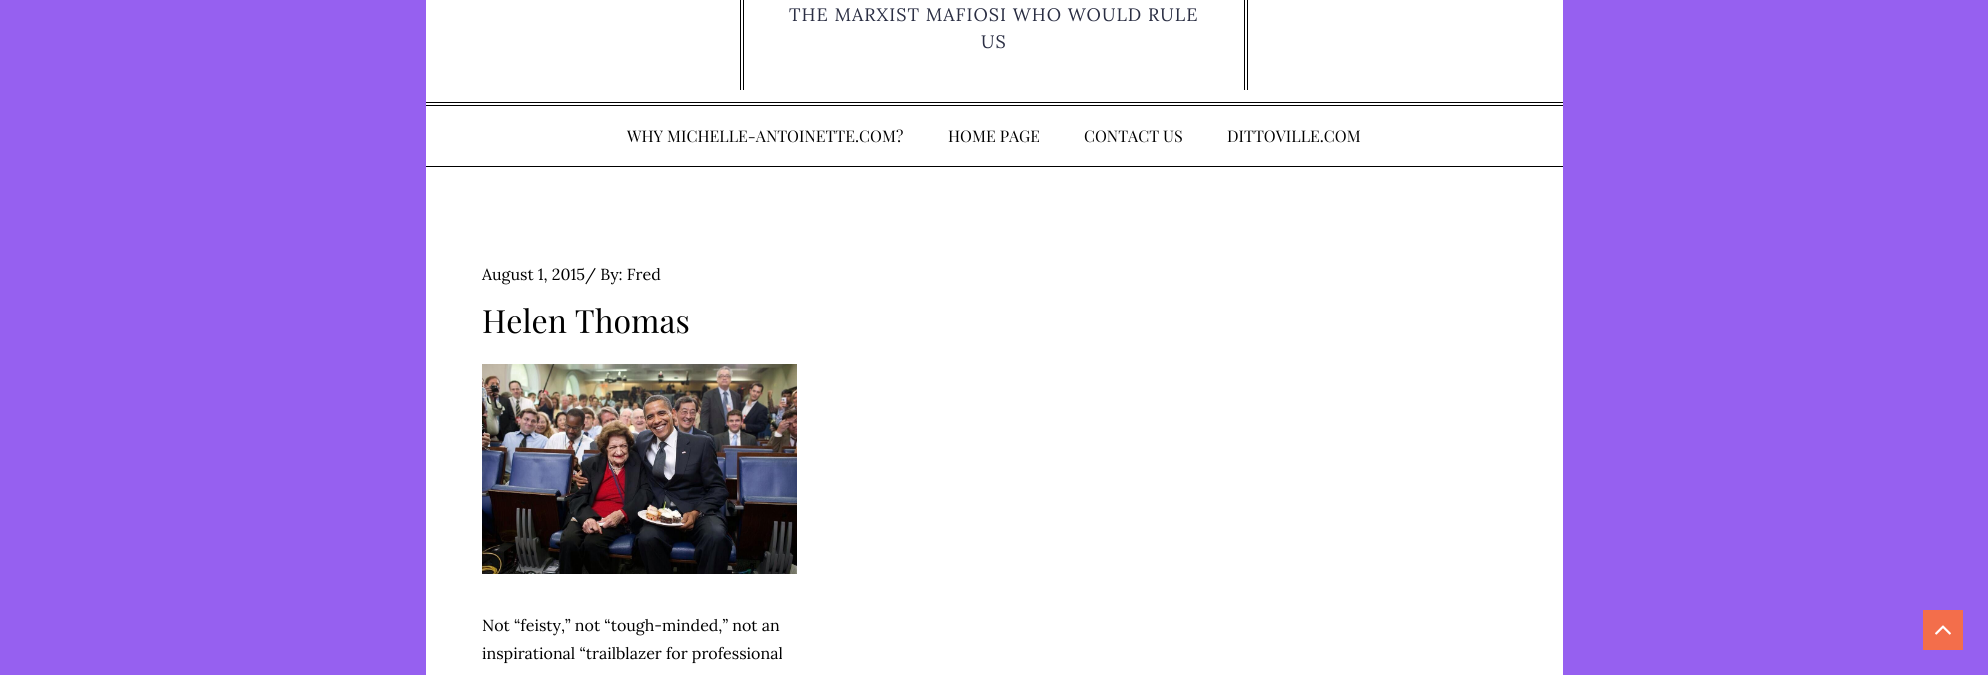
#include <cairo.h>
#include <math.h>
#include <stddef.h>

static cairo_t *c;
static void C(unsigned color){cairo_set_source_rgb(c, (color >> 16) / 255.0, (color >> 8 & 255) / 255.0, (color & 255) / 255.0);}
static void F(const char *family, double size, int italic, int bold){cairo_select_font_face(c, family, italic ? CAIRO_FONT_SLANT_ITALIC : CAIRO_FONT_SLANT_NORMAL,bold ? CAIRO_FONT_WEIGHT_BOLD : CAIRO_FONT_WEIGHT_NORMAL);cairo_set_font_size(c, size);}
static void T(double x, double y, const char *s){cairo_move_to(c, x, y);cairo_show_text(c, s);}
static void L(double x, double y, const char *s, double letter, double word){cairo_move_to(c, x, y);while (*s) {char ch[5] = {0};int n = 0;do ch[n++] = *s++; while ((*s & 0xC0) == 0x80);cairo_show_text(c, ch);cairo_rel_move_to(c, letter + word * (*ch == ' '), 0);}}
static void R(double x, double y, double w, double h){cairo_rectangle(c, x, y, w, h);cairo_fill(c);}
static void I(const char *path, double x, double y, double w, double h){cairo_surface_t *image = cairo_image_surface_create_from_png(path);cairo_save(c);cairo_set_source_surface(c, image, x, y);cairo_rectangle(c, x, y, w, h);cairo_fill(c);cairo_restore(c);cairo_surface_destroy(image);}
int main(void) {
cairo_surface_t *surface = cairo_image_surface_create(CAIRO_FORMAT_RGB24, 1988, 675);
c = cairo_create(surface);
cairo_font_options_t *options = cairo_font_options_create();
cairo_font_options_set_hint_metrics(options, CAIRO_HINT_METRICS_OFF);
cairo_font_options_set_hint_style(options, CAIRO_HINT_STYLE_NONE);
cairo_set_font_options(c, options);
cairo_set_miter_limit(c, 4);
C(0x9660f0);
cairo_paint(c);
C(0xffffff);
R(426,0,1137,675);
C(0x000000);
R(1244,0,1,90);
R(743,0,1,90);
R(740,0,1,90);
F("Lora",18,0,0);
C(0x2a2e43);
L(789,21,"THE MARXIST MAFIOSI WHO WOULD RULE",1,0);
L(981,48,"US",1,0);
C(0x000000);
R(1247,0,1,90);
R(426,105,1137,1);
R(426,166,1137,1);
R(426,102,1137,1);
F("Playfair Display",16,0,0);
T(627,142,"WHY MICHELLE-ANTOINETTE.COM?");
T(948,142,"HOME PAGE");
T(1084,142,"CONTACT US");
T(1227,142,"DITTOVILLE.COM");
F("Lora",16,0,0);
T(482,280,"August 1, 2015/ By: Fred");
F("Playfair Display",32,0,0);
T(482,333,"Helen Thomas");
I("1.png",482,364,315,210);
F("Lora",16,0,0);
T(482,631,"Not “feisty,” not “tough-minded,” not an");
T(482,659,"inspirational “trailblazer for professional");
C(0xf36e4b);
R(1923,610,40,40);
I("2.png",1935,625,16,10);
cairo_surface_write_to_png(surface, "o.png");
cairo_font_options_destroy(options);
cairo_destroy(c);
cairo_surface_destroy(surface);
return 0;
}
